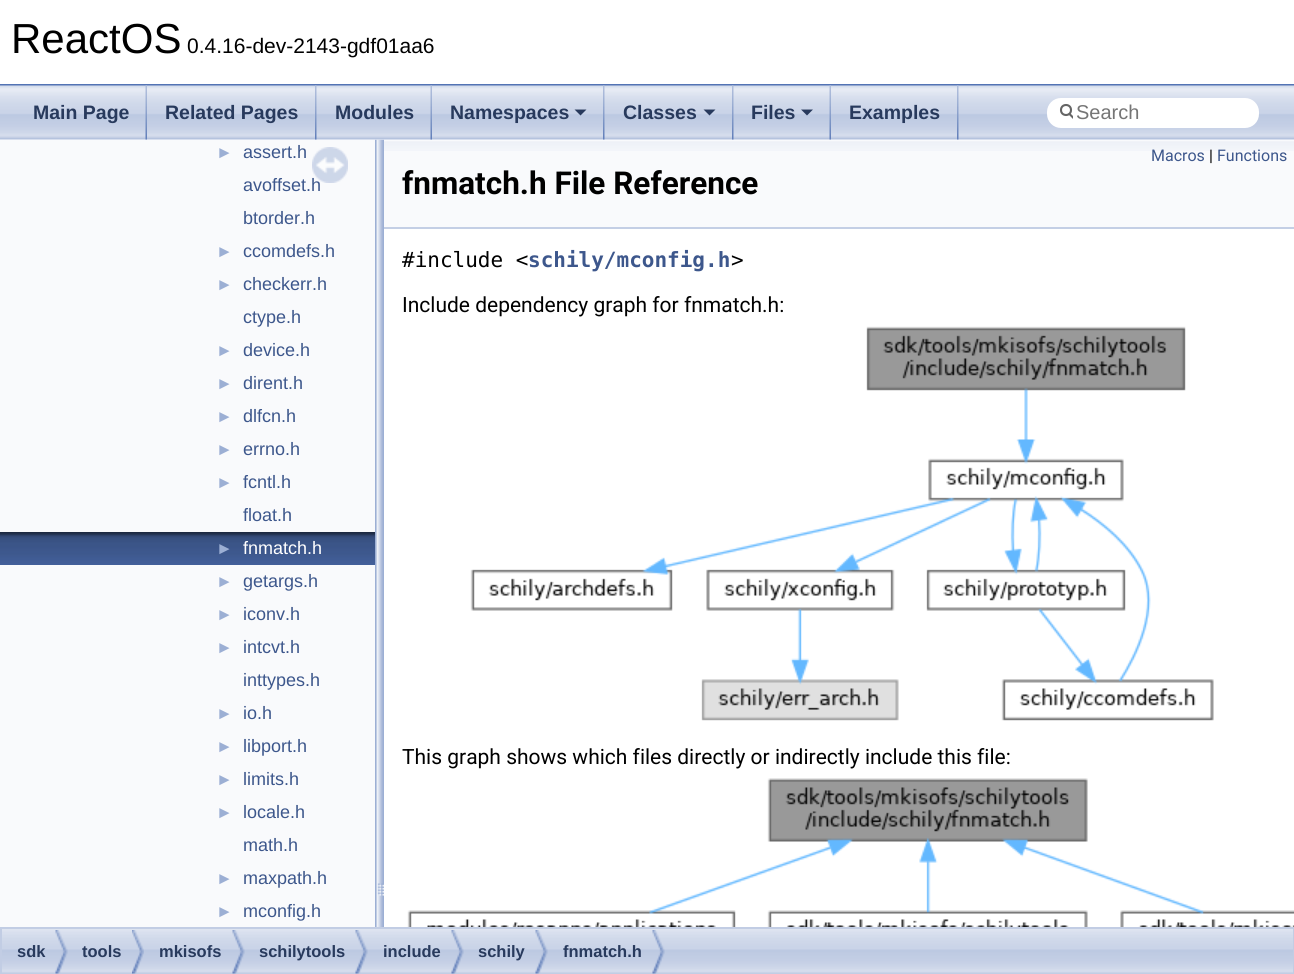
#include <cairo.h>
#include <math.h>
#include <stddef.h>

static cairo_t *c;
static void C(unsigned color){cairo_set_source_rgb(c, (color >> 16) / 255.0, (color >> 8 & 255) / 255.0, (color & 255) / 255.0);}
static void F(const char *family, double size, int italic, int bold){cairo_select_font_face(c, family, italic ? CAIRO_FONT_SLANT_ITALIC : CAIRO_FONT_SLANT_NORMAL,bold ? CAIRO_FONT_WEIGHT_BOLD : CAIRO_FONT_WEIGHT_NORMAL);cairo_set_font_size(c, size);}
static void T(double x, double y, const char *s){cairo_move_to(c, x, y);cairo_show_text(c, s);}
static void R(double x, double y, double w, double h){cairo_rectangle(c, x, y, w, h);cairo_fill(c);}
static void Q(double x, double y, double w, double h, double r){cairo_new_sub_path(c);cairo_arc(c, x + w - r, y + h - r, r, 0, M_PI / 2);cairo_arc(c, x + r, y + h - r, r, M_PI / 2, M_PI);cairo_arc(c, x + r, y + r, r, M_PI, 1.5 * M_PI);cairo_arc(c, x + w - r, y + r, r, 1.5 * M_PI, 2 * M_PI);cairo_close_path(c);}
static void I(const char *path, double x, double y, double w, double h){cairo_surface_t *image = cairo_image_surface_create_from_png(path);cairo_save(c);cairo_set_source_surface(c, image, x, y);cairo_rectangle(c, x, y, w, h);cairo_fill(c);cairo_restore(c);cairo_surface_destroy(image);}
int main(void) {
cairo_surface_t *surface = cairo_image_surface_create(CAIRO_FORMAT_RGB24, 1294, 974);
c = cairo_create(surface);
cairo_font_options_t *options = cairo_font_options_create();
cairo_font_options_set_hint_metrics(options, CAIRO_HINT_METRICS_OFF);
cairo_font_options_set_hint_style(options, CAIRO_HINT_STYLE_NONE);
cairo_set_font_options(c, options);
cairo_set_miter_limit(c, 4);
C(0xffffff);
cairo_paint(c);
C(0x5373b4);
R(0,84,1294,2);
F("Liberation Sans",42,0,0);
C(0x000000);
T(11,53,"ReactOS");
F("Liberation Sans",21,0,0);
T(187,53,"0.4.16-dev-2143-gdf01aa6");
I("6.png",375,139,9,788);
I("1.png",0,85,1294,55);
I("2.png",145,85,2,55);
F("Liberation Sans",19.5,0,1);
C(0x283a5d);
T(33,119,"Main Page");
I("3.png",315,85,2,55);
T(165,119,"Related Pages");
I("2.png",430,85,2,55);
T(335,119,"Modules");
I("3.png",603,85,2,55);
T(450,119,"Namespaces");
cairo_new_path(c);
cairo_move_to(c,574.5,109.5);
cairo_line_to(c,586.5,109.5);
cairo_line_to(c,580.5,115.5);
cairo_close_path(c);
cairo_fill(c);
I("3.png",732,85,2,55);
T(623,119,"Classes");
cairo_new_path(c);
cairo_move_to(c,703.5,109.5);
cairo_line_to(c,715.5,109.5);
cairo_line_to(c,709.5,115.5);
cairo_close_path(c);
cairo_fill(c);
I("2.png",829,85,2,55);
T(751,119,"Files");
cairo_new_path(c);
cairo_move_to(c,801,109.5);
cairo_line_to(c,813,109.5);
cairo_line_to(c,807,115.5);
cairo_close_path(c);
cairo_fill(c);
I("3.png",957,85,2,55);
T(849,119,"Examples");
C(0xffffff);
Q(1047,98,212,30,14);
cairo_fill(c);
cairo_arc(c,1066,110,5,0,2 * M_PI);
C(0x656565);
cairo_set_line_width(c,2.1);
cairo_stroke(c);
cairo_save(c);
cairo_rectangle(c,1058,98,15,28);
cairo_clip(c);
cairo_new_path(c);
cairo_move_to(c,1069.5,114);
cairo_line_to(c,1074,118.5);
cairo_set_line_cap(c,CAIRO_LINE_CAP_ROUND);
cairo_stroke(c);
cairo_restore(c);
F("Liberation Sans",20,0,0);
C(0x757575);
T(1076,119,"Search");
C(0xf9fafc);
R(0,140,375,787);
F("Liberation Sans",17,0,0);
C(0x9cafd4);
T(216,158,"►");
F("Liberation Sans",18,0,0);
C(0x3d578c);
T(243,158,"assert.h");
T(243,191,"avoffset.h");
T(243,224,"btorder.h");
F("Liberation Sans",17,0,0);
C(0x9cafd4);
T(216,257,"►");
F("Liberation Sans",18,0,0);
C(0x3d578c);
T(243,257,"ccomdefs.h");
F("Liberation Sans",17,0,0);
C(0x9cafd4);
T(216,290,"►");
F("Liberation Sans",18,0,0);
C(0x3d578c);
T(243,290,"checkerr.h");
T(243,323,"ctype.h");
F("Liberation Sans",17,0,0);
C(0x9cafd4);
T(216,356,"►");
F("Liberation Sans",18,0,0);
C(0x3d578c);
T(243,356,"device.h");
F("Liberation Sans",17,0,0);
C(0x9cafd4);
T(216,389,"►");
F("Liberation Sans",18,0,0);
C(0x3d578c);
T(243,389,"dirent.h");
F("Liberation Sans",17,0,0);
C(0x9cafd4);
T(216,422,"►");
F("Liberation Sans",18,0,0);
C(0x3d578c);
T(243,422,"dlfcn.h");
F("Liberation Sans",17,0,0);
C(0x9cafd4);
T(216,455,"►");
F("Liberation Sans",18,0,0);
C(0x3d578c);
T(243,455,"errno.h");
F("Liberation Sans",17,0,0);
C(0x9cafd4);
T(216,488,"►");
F("Liberation Sans",18,0,0);
C(0x3d578c);
T(243,488,"fcntl.h");
T(243,521,"float.h");
I("4.png",0,532,375,33);
F("Liberation Sans",17,0,0);
C(0x9cafd4);
T(216,554,"►");
F("Liberation Sans",18,0,0);
C(0xffffff);
T(243,554,"fnmatch.h");
F("Liberation Sans",17,0,0);
C(0x9cafd4);
T(216,587,"►");
F("Liberation Sans",18,0,0);
C(0x3d578c);
T(243,587,"getargs.h");
F("Liberation Sans",17,0,0);
C(0x9cafd4);
T(216,620,"►");
F("Liberation Sans",18,0,0);
C(0x3d578c);
T(243,620,"iconv.h");
F("Liberation Sans",17,0,0);
C(0x9cafd4);
T(216,653,"►");
F("Liberation Sans",18,0,0);
C(0x3d578c);
T(243,653,"intcvt.h");
T(243,686,"inttypes.h");
F("Liberation Sans",17,0,0);
C(0x9cafd4);
T(216,719,"►");
F("Liberation Sans",18,0,0);
C(0x3d578c);
T(243,719,"io.h");
F("Liberation Sans",17,0,0);
C(0x9cafd4);
T(216,752,"►");
F("Liberation Sans",18,0,0);
C(0x3d578c);
T(243,752,"libport.h");
F("Liberation Sans",17,0,0);
C(0x9cafd4);
T(216,785,"►");
F("Liberation Sans",18,0,0);
C(0x3d578c);
T(243,785,"limits.h");
F("Liberation Sans",17,0,0);
C(0x9cafd4);
T(216,818,"►");
F("Liberation Sans",18,0,0);
C(0x3d578c);
T(243,818,"locale.h");
T(243,851,"math.h");
F("Liberation Sans",17,0,0);
C(0x9cafd4);
T(216,884,"►");
F("Liberation Sans",18,0,0);
C(0x3d578c);
T(243,884,"maxpath.h");
F("Liberation Sans",17,0,0);
C(0x9cafd4);
T(216,917,"►");
F("Liberation Sans",18,0,0);
C(0x3d578c);
T(243,917,"mconfig.h");
I("5.png",312,147,36,36);
C(0xf9fafc);
R(384,140,910,87);
I("7.png",384,141,910,10);
C(0xc4cfe5);
R(384,227,910,2);
F("Roboto",16,0,0);
C(0x3d578c);
T(1151,161,"Macros");
C(0x000000);
T(1209,161,"|");
C(0x3d578c);
T(1217,161,"Functions");
F("Roboto",31.5,0,1);
C(0x000000);
T(402,194,"fnmatch.h File Reference");
F("DejaVu Sans Mono",21,0,0);
T(402,267,"#include <");
F("DejaVu Sans Mono",21,0,1);
C(0x3d578c);
T(528,267,"schily/mconfig.h");
F("DejaVu Sans Mono",21,0,0);
C(0x000000);
T(731,267,">");
F("Roboto",21,0,0);
T(402,312,"Include dependency graph for fnmatch.h:");
I("8.png",470,326,744,395);
T(402,764,"This graph shows which files directly or indirectly include this file:");
I("9.png",407,778,887,149);
I("10.png",2,929,1291,44);
cairo_rectangle(c,1,928,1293,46);
C(0xc2cde4);
cairo_set_line_width(c,2);
cairo_stroke(c);
I("11.png",55,930,13,44);
F("Liberation Sans",16.5,0,1);
C(0x283a5d);
T(17,957,"sdk");
I("12.png",132,930,12,44);
T(82,957,"tools");
I("11.png",232,930,13,44);
T(159,957,"mkisofs");
I("13.png",355,930,13,44);
T(259,957,"schilytools");
I("11.png",451,930,13,44);
T(383,957,"include");
I("13.png",535,930,13,44);
T(478,957,"schily");
I("13.png",652,930,13,44);
T(563,957,"fnmatch.h");
cairo_surface_write_to_png(surface, "o.png");
cairo_font_options_destroy(options);
cairo_destroy(c);
cairo_surface_destroy(surface);
return 0;
}
